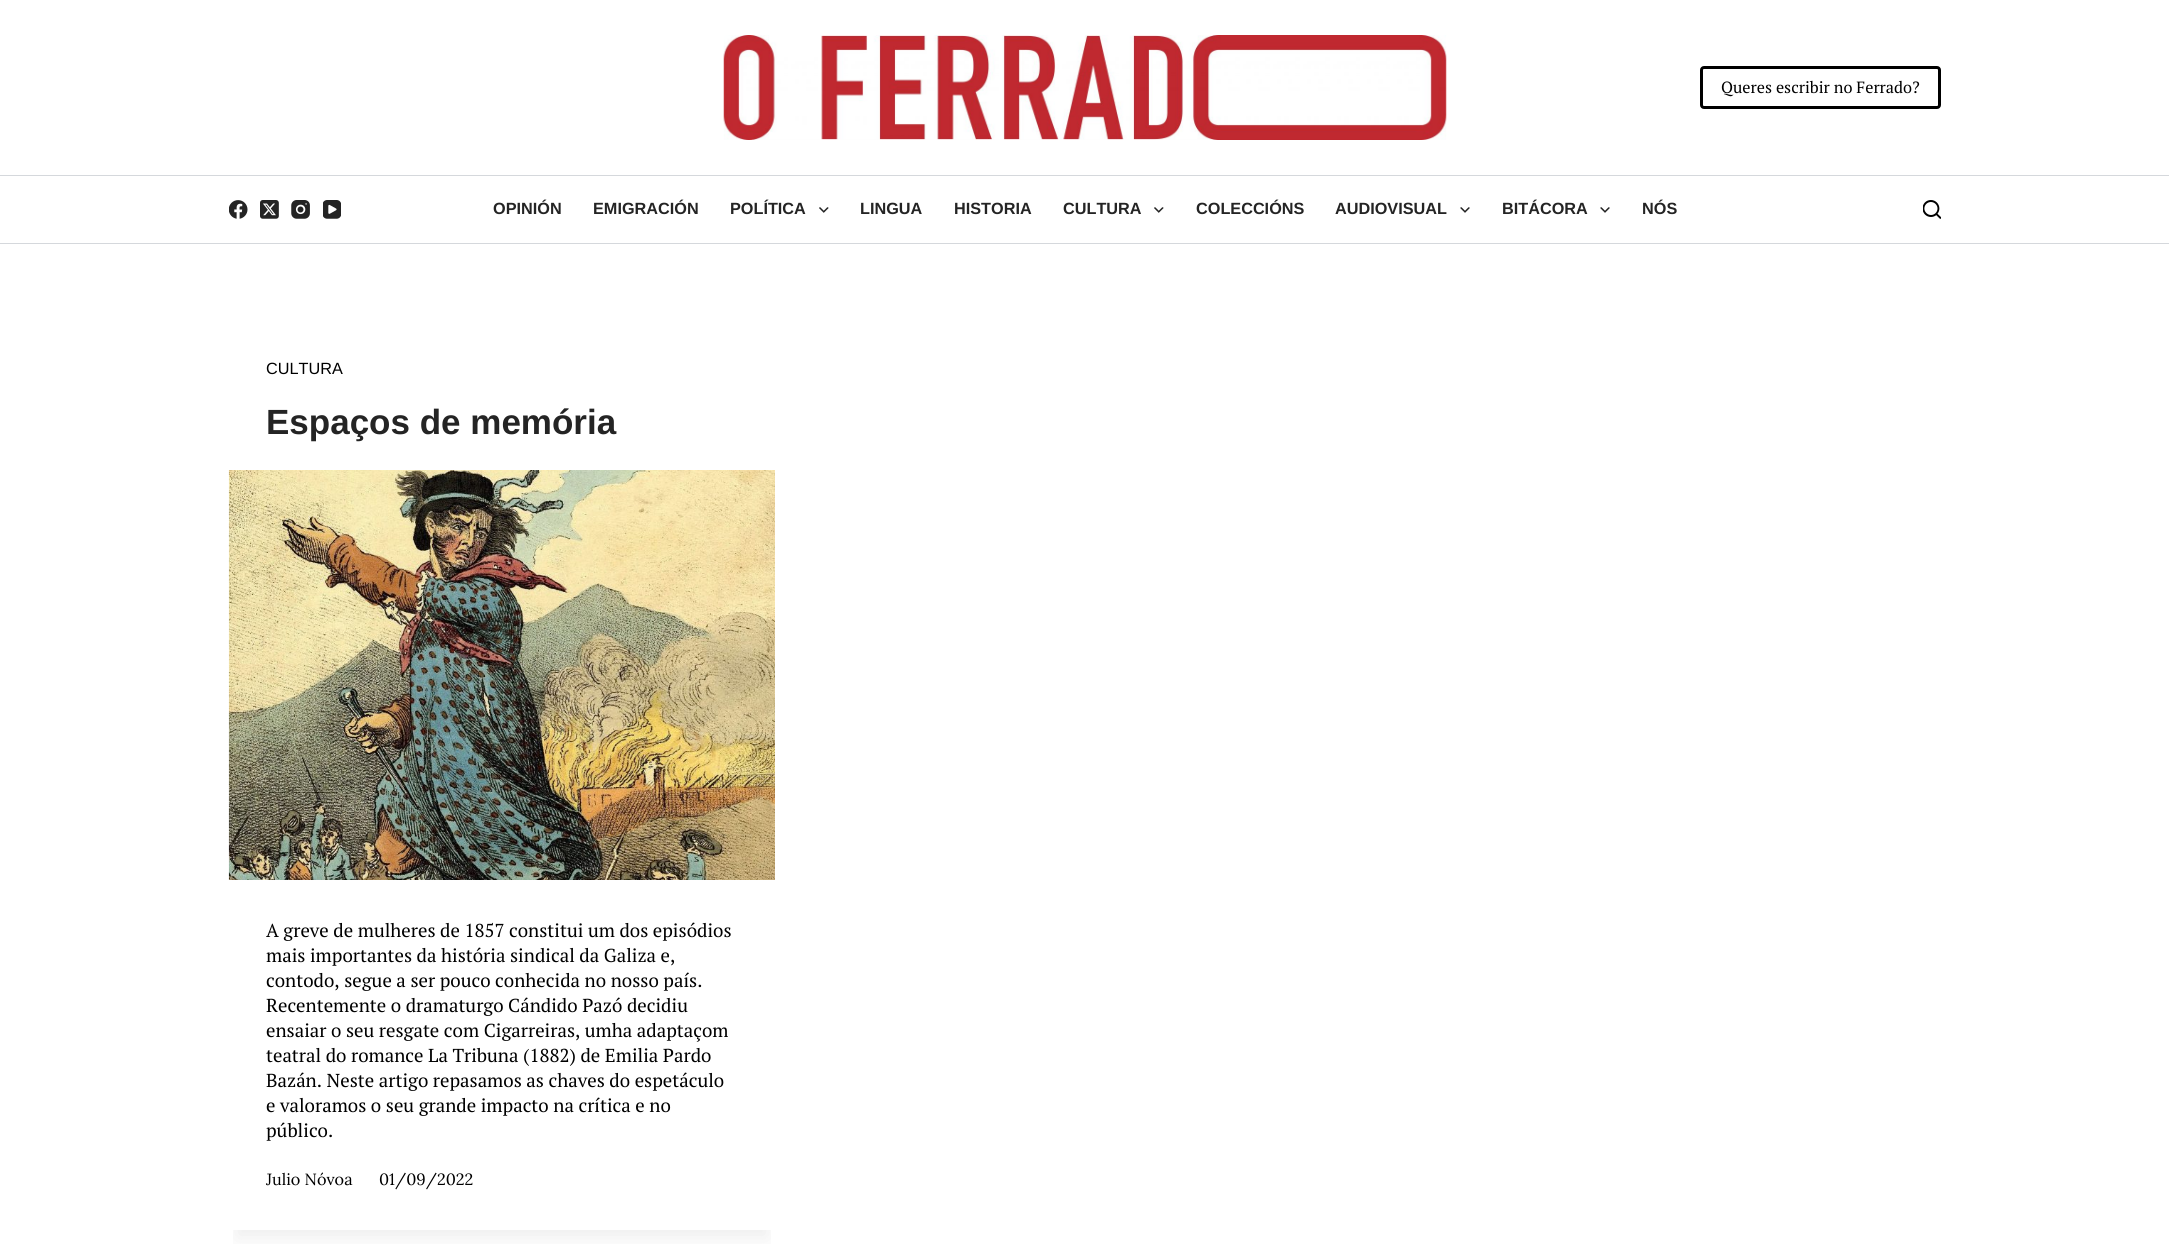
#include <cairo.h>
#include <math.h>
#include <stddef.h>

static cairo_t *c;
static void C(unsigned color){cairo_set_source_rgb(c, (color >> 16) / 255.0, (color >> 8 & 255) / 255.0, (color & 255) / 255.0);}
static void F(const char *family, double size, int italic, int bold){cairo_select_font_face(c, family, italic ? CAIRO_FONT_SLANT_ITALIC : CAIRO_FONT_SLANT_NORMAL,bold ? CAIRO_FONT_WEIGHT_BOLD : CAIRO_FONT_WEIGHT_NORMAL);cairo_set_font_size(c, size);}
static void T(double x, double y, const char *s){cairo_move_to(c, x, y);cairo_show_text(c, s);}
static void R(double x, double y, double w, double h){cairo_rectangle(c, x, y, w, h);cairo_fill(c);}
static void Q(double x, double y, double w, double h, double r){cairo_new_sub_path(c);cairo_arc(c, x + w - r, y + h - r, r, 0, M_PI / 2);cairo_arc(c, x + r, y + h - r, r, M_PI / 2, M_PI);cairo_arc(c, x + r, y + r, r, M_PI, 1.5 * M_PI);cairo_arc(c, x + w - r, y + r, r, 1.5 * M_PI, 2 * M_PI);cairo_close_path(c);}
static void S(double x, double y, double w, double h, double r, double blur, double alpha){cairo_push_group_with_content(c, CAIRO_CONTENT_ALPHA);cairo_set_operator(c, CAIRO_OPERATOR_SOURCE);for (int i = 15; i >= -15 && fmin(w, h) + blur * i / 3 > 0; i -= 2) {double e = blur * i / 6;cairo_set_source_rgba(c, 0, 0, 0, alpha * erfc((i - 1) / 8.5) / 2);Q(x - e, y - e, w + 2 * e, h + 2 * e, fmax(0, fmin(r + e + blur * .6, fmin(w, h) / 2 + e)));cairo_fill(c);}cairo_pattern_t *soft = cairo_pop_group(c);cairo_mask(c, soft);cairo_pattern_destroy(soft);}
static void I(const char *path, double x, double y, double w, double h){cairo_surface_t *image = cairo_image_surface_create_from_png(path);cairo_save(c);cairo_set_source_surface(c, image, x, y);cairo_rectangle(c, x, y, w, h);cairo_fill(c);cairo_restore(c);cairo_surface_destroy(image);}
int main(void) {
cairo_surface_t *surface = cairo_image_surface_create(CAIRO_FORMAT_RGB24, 2169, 1258);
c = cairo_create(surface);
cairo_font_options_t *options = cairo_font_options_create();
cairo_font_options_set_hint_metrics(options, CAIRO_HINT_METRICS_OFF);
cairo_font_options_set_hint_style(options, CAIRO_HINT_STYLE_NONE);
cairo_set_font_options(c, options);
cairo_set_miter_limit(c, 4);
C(0xffffff);
cairo_paint(c);
I("1.png",723,35,724,105);
Q(1701.5,67.5,238,40,2.5);
C(0x000000);
cairo_set_line_width(c,3);
cairo_stroke(c);
F("PT Serif",16.25,0,0);
T(1721,93,"Queres escribir no Ferrado?");
C(0xd5d8dc);
R(0,175,2169,1);
R(0,243,2169,1);
I("2.png",229,200,19,19);
I("3.png",260,200,19,19);
I("4.png",291,200,19,19);
I("5.png",323,200,18,19);
F("Liberation Sans",16.25,0,1);
C(0x242424);
T(493,214,"OPINIÓN");
T(593,214,"EMIGRACIÓN");
T(730,214,"POLÍTICA");
I("6.png",819,207,10,6);
T(860,214,"LINGUA");
T(954,214,"HISTORIA");
T(1063,214,"CULTURA");
I("6.png",1154,207,10,6);
T(1196,214,"COLECCIÓNS");
T(1335,214,"AUDIOVISUAL");
I("7.png",1460,207,10,6);
T(1502,214,"BITÁCORA");
I("7.png",1600,207,10,6);
T(1642,214,"NÓS");
I("8.png",1923,200,18,19);
cairo_save(c);
cairo_rectangle(c,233,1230,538,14);
cairo_clip(c);
C(0x000000);
S(236,341,532,897,0,11,.07);
cairo_restore(c);
F("Liberation Sans",16.25,0,0);
C(0x000000);
T(266,374,"CULTURA");
F("Liberation Sans",35,0,1);
C(0x242424);
T(266,434,"Espaços de memória");
I("9.png",228,470,547,410);
F("PT Serif",18.75,0,0);
C(0x000000);
T(266,937,"A greve de mulheres de 1857 constitui um dos episódios");
T(266,962,"mais importantes da história sindical da Galiza e,");
T(266,987,"contodo, segue a ser pouco conhecida no nosso país.");
T(266,1012,"Recentemente o dramaturgo Cándido Pazó decidiu");
T(266,1037,"ensaiar o seu resgate com Cigarreiras, umha adaptaçom");
T(266,1062,"teatral do romance La Tribuna (1882) de Emilia Pardo");
T(266,1087,"Bazán. Neste artigo repasamos as chaves do espetáculo");
T(266,1112,"e valoramos o seu grande impacto na crítica e no");
T(266,1137,"público.");
F("Lora",16.25,0,0);
T(266,1185,"Julio Nóvoa");
T(379,1185,"01/09/2022");
cairo_surface_write_to_png(surface, "o.png");
cairo_font_options_destroy(options);
cairo_destroy(c);
cairo_surface_destroy(surface);
return 0;
}
